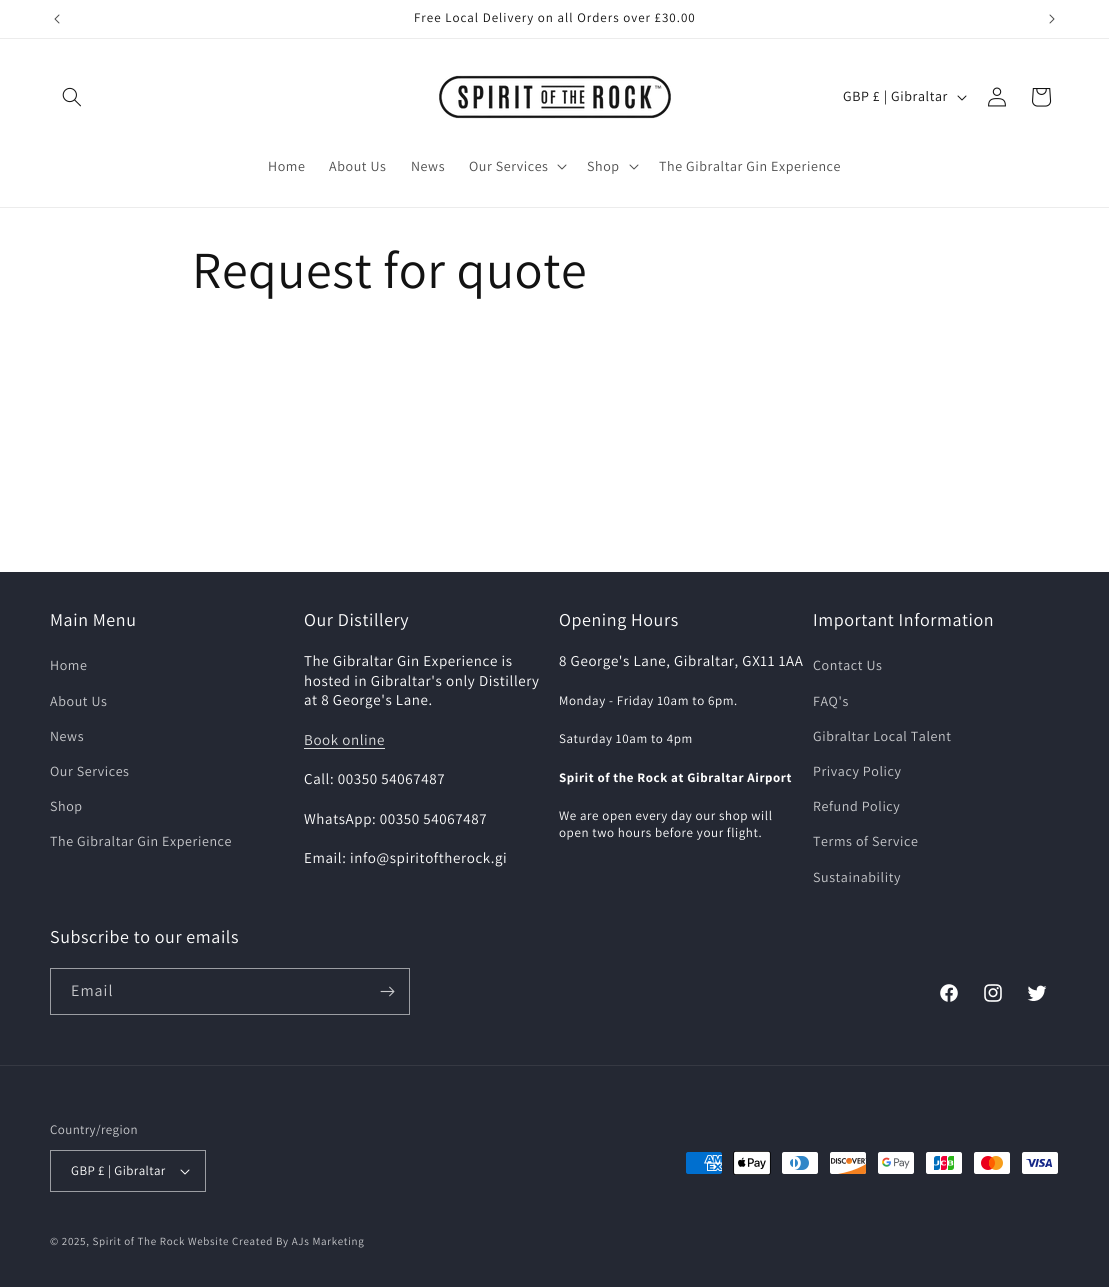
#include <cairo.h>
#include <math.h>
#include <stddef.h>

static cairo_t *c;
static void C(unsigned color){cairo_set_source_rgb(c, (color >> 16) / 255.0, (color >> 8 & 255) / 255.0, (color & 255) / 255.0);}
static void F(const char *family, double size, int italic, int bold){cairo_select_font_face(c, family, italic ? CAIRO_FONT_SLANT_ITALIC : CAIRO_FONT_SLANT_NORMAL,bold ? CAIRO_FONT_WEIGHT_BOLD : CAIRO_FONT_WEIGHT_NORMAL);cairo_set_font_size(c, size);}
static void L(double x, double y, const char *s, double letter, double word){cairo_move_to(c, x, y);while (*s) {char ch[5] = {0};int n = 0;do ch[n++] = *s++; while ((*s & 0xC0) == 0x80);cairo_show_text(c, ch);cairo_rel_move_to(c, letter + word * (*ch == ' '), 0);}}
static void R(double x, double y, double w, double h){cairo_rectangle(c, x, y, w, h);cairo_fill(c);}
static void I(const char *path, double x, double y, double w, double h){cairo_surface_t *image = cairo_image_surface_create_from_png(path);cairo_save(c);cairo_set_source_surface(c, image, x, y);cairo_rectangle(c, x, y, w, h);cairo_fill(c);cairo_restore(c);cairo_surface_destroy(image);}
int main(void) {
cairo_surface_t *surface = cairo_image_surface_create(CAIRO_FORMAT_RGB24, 1109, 1287);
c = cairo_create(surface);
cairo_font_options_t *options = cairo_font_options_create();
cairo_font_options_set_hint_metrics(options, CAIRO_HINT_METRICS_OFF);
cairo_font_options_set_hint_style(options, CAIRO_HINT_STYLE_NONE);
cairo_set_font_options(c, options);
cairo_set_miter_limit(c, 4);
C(0xffffff);
cairo_paint(c);
C(0xececec);
R(0,38,1109,1);
I("1.png",54,14,6,10);
F("Assistant",13,0,0);
C(0x121212);
L(414,22,"Free Local Delivery on all Orders over £30.00",1,0);
I("2.png",1049,14,6,10);
C(0xececec);
R(0,207,1109,1);
I("3.png",62,87,19,20);
I("4.png",439,75,232,44);
F("Assistant",14,0,0);
C(0x121212);
L(843,101,"GBP £ | Gibraltar",.6,0);
I("5.png",957,95,10,6);
I("6.png",988,87,18,20);
I("7.png",1032,88,20,19);
C(0x4d4d4d);
L(268,171,"Home",.6,0);
L(329,171,"About Us",.6,0);
L(411,171,"News",.6,0);
L(469,171,"Our Services",.6,0);
I("8.png",557,164,10,6);
L(587,171,"Shop",.6,0);
I("8.png",629,164,10,6);
L(659,171,"The Gibraltar Gin Experience",.6,0);
F("Assistant",52,0,0);
C(0x121212);
L(192,288,"Request for quote",.6,0);
C(0x242833);
R(0,572,1109,715);
F("Assistant",18,0,0);
C(0xffffff);
L(50,626,"Main Menu",.6,0);
F("Assistant",14,0,0);
C(0xc8c9cc);
L(50,670,"Home",.6,0);
L(50,706,"About Us",.6,0);
L(50,741,"News",.6,0);
L(50,776,"Our Services",.6,0);
L(50,811,"Shop",.6,0);
L(50,846,"The Gibraltar Gin Experience",.6,0);
F("Assistant",18,0,0);
C(0xffffff);
L(304,626,"Our Distillery",.6,0);
F("Assistant",15,0,0);
L(304,666,"The Gibraltar Gin Experience is",.6,0);
L(304,686,"hosted in Gibraltar's only Distillery",.6,0);
L(304,705,"at 8 George's Lane.",.6,0);
C(0xdedfe0);
L(304,745,"Book online",.6,0);
R(304,748,81,1);
C(0xffffff);
L(304,784,"Call: 00350 54067487",.6,0);
L(304,824,"WhatsApp: 00350 54067487",.6,0);
L(304,863,"Email: info@spiritoftherock.gi",.6,0);
F("Assistant",18,0,0);
L(559,626,"Opening Hours",.6,0);
F("Assistant",15,0,0);
L(559,666,"8 George's Lane, Gibraltar, GX11 1AA",.6,0);
F("Assistant",13,0,0);
L(559,705,"Monday - Friday 10am to 6pm.",.6,0);
L(559,743,"Saturday 10am to 4pm",.6,0);
F("Assistant",13,0,1);
L(559,782,"Spirit of the Rock at Gibraltar Airport",.6,0);
F("Assistant",13,0,0);
L(559,820,"We are open every day our shop will",.6,0);
L(559,837,"open two hours before your flight.",.6,0);
F("Assistant",18,0,0);
L(813,626,"Important Information",.6,0);
F("Assistant",14,0,0);
C(0xc8c9cc);
L(813,670,"Contact Us",.6,0);
L(813,706,"FAQ's",.6,0);
L(813,741,"Gibraltar Local Talent",.6,0);
L(813,776,"Privacy Policy",.6,0);
L(813,811,"Refund Policy",.6,0);
L(813,846,"Terms of Service",.6,0);
L(813,882,"Sustainability",.6,0);
F("Assistant",18,0,0);
C(0xffffff);
L(50,943,"Subscribe to our emails",.6,0);
cairo_rectangle(c,50.5,968.5,359,46);
C(0x9c9ea3);
cairo_set_line_width(c,1);
cairo_stroke(c);
F("Assistant",16,0,0);
C(0xc8c9cc);
L(71,996,"Email",1,0);
I("9.png",380,986,15,11);
I("10.png",940,984,18,18);
I("11.png",984,984,18,18);
I("12.png",1027,985,20,16);
C(0x363943);
R(0,1065,1109,1);
F("Assistant",13,0,0);
C(0xc8c9cc);
L(50,1134,"Country/region",.4,0);
I("13.png",180,1169,10,6);
cairo_rectangle(c,50.5,1150.5,155,41);
C(0x9c9ea3);
cairo_stroke(c);
C(0xffffff);
L(71,1175,"GBP £ | Gibraltar",.4,0);
I("14.png",686,1152,36,22);
I("15.png",733,1151,38,24);
I("16.png",782,1152,36,22);
I("17.png",830,1152,36,22);
I("18.png",878,1152,36,22);
I("19.png",926,1152,36,22);
I("20.png",974,1152,36,22);
I("21.png",1022,1152,36,22);
F("Assistant",11,0,0);
C(0xc8c9cc);
L(50,1245,"© 2025, Spirit of The Rock Website Created By AJs Marketing",.7,0);
cairo_surface_write_to_png(surface, "o.png");
cairo_font_options_destroy(options);
cairo_destroy(c);
cairo_surface_destroy(surface);
return 0;
}
